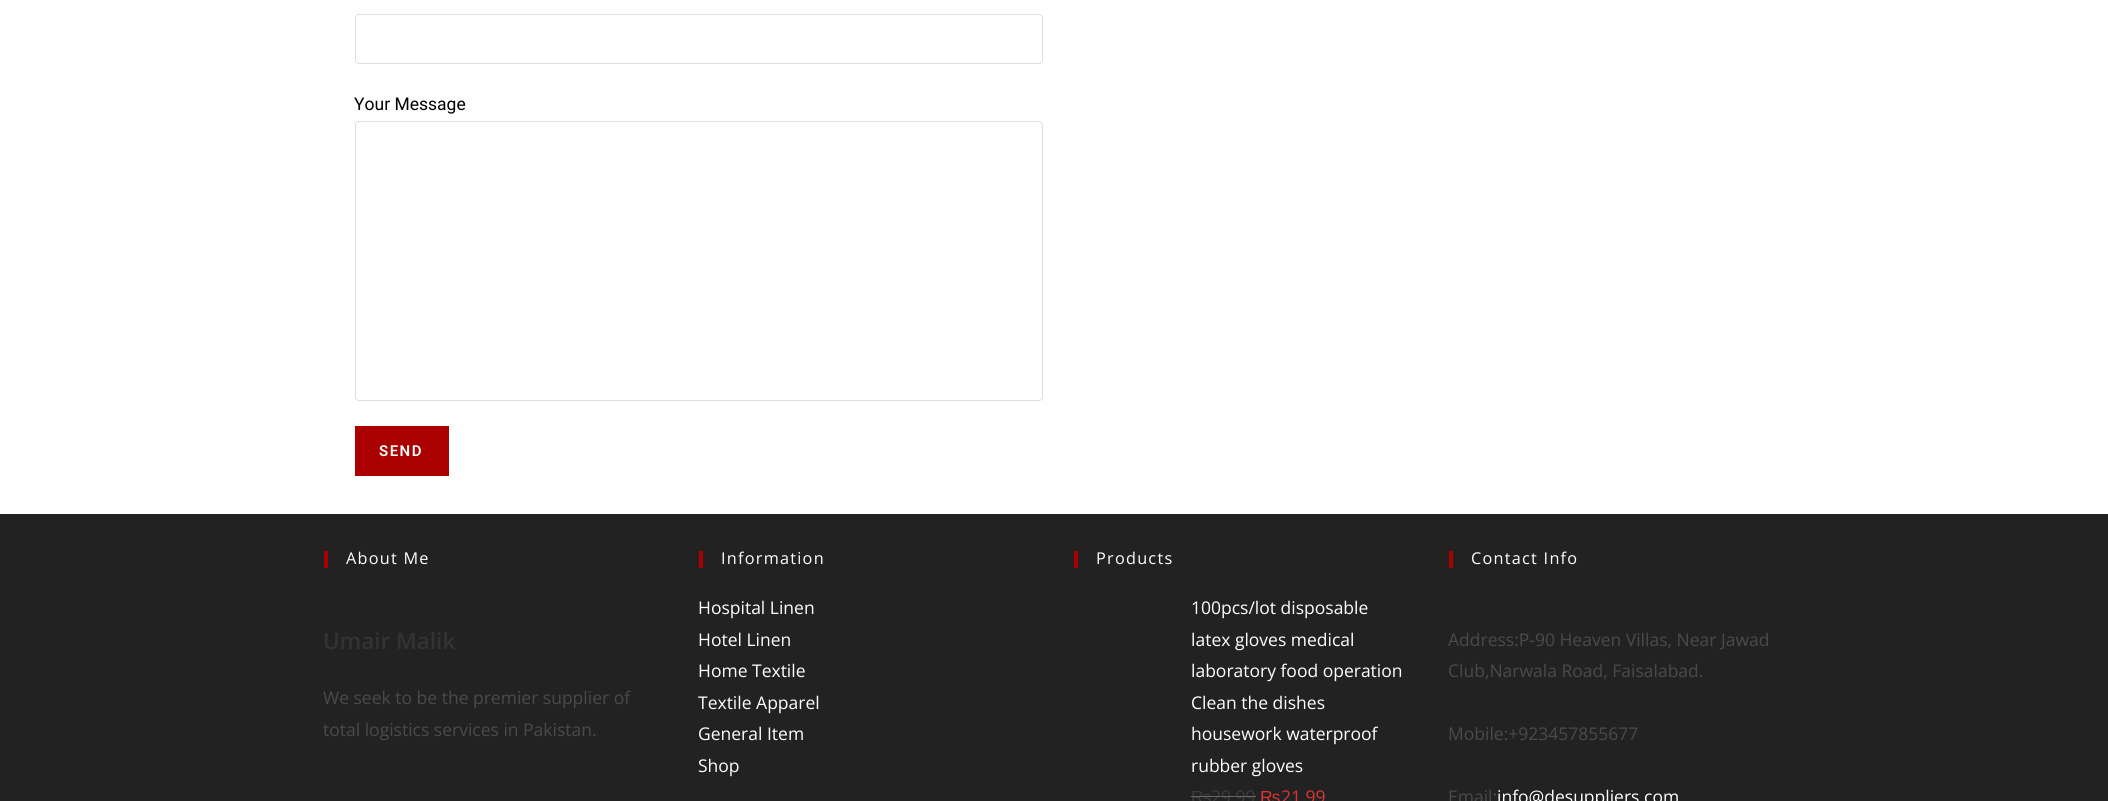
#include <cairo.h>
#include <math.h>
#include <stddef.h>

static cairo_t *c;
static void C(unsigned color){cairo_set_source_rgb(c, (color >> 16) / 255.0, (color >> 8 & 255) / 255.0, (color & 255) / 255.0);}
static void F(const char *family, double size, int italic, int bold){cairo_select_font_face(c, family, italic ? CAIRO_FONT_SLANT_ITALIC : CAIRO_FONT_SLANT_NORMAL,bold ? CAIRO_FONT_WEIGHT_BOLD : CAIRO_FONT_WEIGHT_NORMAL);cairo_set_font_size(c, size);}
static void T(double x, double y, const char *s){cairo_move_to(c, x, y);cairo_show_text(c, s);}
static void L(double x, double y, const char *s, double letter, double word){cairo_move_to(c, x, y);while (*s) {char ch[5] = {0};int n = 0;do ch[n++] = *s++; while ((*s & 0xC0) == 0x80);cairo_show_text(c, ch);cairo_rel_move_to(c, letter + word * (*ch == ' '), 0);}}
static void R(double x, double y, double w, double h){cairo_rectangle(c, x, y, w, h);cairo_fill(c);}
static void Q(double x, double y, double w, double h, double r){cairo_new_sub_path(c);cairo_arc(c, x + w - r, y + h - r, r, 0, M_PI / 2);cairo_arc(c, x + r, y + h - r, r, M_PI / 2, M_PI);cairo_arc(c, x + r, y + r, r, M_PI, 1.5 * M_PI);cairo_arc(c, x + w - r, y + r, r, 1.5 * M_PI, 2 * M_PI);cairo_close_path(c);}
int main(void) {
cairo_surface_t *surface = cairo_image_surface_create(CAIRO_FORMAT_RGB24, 2108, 801);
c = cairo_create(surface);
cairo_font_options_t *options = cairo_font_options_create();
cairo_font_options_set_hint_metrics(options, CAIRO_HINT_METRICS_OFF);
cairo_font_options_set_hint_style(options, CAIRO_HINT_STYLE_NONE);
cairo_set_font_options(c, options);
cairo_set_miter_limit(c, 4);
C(0xffffff);
cairo_paint(c);
Q(355.5,14.5,687,49,3.5);
C(0xdddddd);
cairo_set_line_width(c,1);
cairo_stroke(c);
F("Roboto",17.5,0,0);
C(0x000000);
T(354,110,"Your Message");
Q(355.5,121.5,687,279,3.5);
C(0xdddddd);
cairo_stroke(c);
C(0xaa0000);
R(355,426,94,50);
F("Roboto SemiBold",15,0,0);
C(0xffffff);
L(379,456,"SEND",1.5,0);
C(0x222222);
R(0,514,2108,287);
C(0xaa0000);
R(324,551,4,17);
F("Open Sans",16.25,0,0);
C(0xffffff);
L(346,564,"About Me",1.25,0);
F("Open Sans SemiBold",22.5,0,0);
C(0x333333);
T(323,649,"Umair Malik");
F("Open Sans",17.5,0,0);
C(0x4a4a4a);
T(323,704,"We seek to be the premier supplier of");
T(323,736,"total logistics services in Pakistan.");
C(0xaa0000);
R(699,551,4,17);
F("Open Sans",16.25,0,0);
C(0xffffff);
L(721,564,"Information",1.25,0);
F("Open Sans",17.5,0,0);
T(698,614,"Hospital Linen");
T(698,646,"Hotel Linen");
T(698,677,"Home Textile");
T(698,709,"Textile Apparel");
T(698,740,"General Item");
T(698,772,"Shop");
C(0xaa0000);
R(1074,551,4,17);
F("Open Sans",16.25,0,0);
C(0xffffff);
L(1096,564,"Products",1.25,0);
F("Open Sans",17.5,0,0);
T(1191,614,"100pcs/lot disposable");
T(1191,646,"latex gloves medical");
T(1191,677,"laboratory food operation");
T(1191,709,"Clean the dishes");
T(1191,740,"housework waterproof");
T(1191,772,"rubber gloves");
F("Liberation Sans",17.5,0,0);
C(0x3c3c3c);
T(1191,803,"₨");
C(0x666666);
R(1191,796,20,1);
F("Open Sans",17.5,0,0);
C(0x3c3c3c);
T(1211,803,"29.99");
C(0x666666);
R(1211,796,45,1);
F("Liberation Sans",17.5,0,0);
C(0xdd3333);
T(1260,803,"₨");
F("Open Sans",17.5,0,0);
T(1281,803,"21.99");
C(0xaa0000);
R(1449,551,4,17);
F("Open Sans",16.25,0,0);
C(0xffffff);
L(1471,564,"Contact Info",1.25,0);
F("Open Sans",17.5,0,0);
C(0x4a4a4a);
T(1448,646,"Address:P-90 Heaven Villas, Near Jawad");
T(1448,677,"Club,Narwala Road, Faisalabad.");
T(1448,740,"Mobile:+923457855677");
T(1448,803,"Email:");
C(0xffffff);
T(1497,803,"info@desuppliers.com");
cairo_surface_write_to_png(surface, "o.png");
cairo_font_options_destroy(options);
cairo_destroy(c);
cairo_surface_destroy(surface);
return 0;
}
